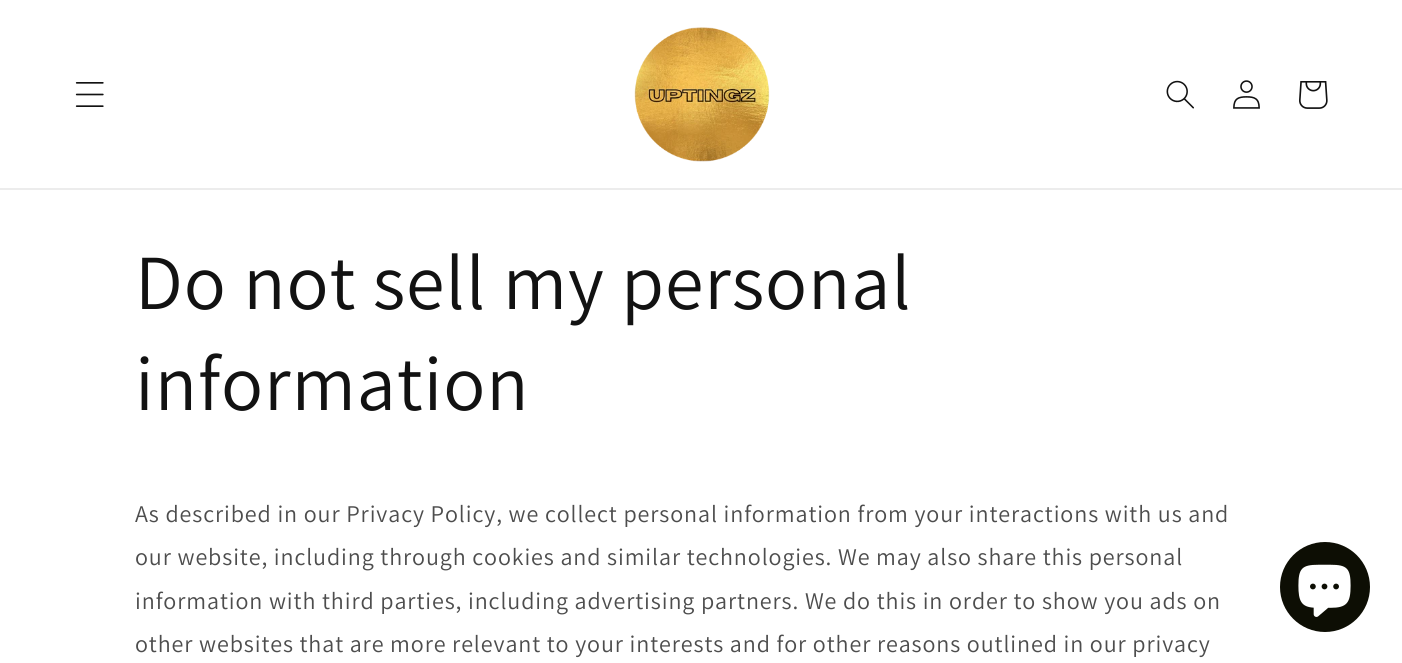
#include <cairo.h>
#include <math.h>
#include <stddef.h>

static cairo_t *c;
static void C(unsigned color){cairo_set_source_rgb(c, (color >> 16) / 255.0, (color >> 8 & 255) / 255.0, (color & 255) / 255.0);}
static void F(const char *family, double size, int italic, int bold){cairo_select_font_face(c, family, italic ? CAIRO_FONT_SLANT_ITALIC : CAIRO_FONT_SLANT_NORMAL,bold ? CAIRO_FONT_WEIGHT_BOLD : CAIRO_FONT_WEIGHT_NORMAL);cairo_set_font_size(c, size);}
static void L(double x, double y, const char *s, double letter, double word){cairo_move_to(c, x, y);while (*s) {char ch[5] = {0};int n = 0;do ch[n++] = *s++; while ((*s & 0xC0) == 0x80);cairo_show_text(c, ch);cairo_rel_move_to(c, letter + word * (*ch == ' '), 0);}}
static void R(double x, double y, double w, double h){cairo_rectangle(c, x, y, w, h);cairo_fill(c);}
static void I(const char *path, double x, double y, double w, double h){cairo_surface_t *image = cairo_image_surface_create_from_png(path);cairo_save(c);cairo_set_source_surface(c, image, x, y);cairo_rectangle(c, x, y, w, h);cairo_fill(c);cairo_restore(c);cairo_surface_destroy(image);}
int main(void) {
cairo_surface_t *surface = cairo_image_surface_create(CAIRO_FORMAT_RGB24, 1402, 663);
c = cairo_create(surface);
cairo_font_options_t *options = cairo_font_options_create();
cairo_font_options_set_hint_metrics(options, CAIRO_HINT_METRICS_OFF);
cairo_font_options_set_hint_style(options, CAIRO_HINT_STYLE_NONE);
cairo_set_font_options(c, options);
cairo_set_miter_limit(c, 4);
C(0xffffff);
cairo_paint(c);
C(0xececec);
R(0,188,1402,2);
I("1.png",75,82,29,25);
I("2.png",634,27,136,135);
I("3.png",1166,80,28,29);
I("4.png",1233,80,27,29);
I("5.png",1299,81,29,28);
F("Assistant",78,0,0);
C(0x121212);
L(135,309,"Do not sell my personal",.9,0);
L(135,410,"information",.9,0);
F("Assistant",24,0,0);
C(0x4d4d4d);
L(135,522,"As described in our Privacy Policy, we collect personal information from your interactions with us and",.9,0);
L(135,565,"our website, including through cookies and similar technologies. We may also share this personal",.9,0);
L(135,609,"information with third parties, including advertising partners. We do this in order to show you ads on",.9,0);
L(135,652,"other websites that are more relevant to your interests and for other reasons outlined in our privacy",.9,0);
C(0x0d0e04);
cairo_new_path(c);
cairo_arc(c,1325,587,45,0,2 * M_PI);
cairo_fill(c);
I("6.png",1298,564,53,53);
cairo_surface_write_to_png(surface, "o.png");
cairo_font_options_destroy(options);
cairo_destroy(c);
cairo_surface_destroy(surface);
return 0;
}
